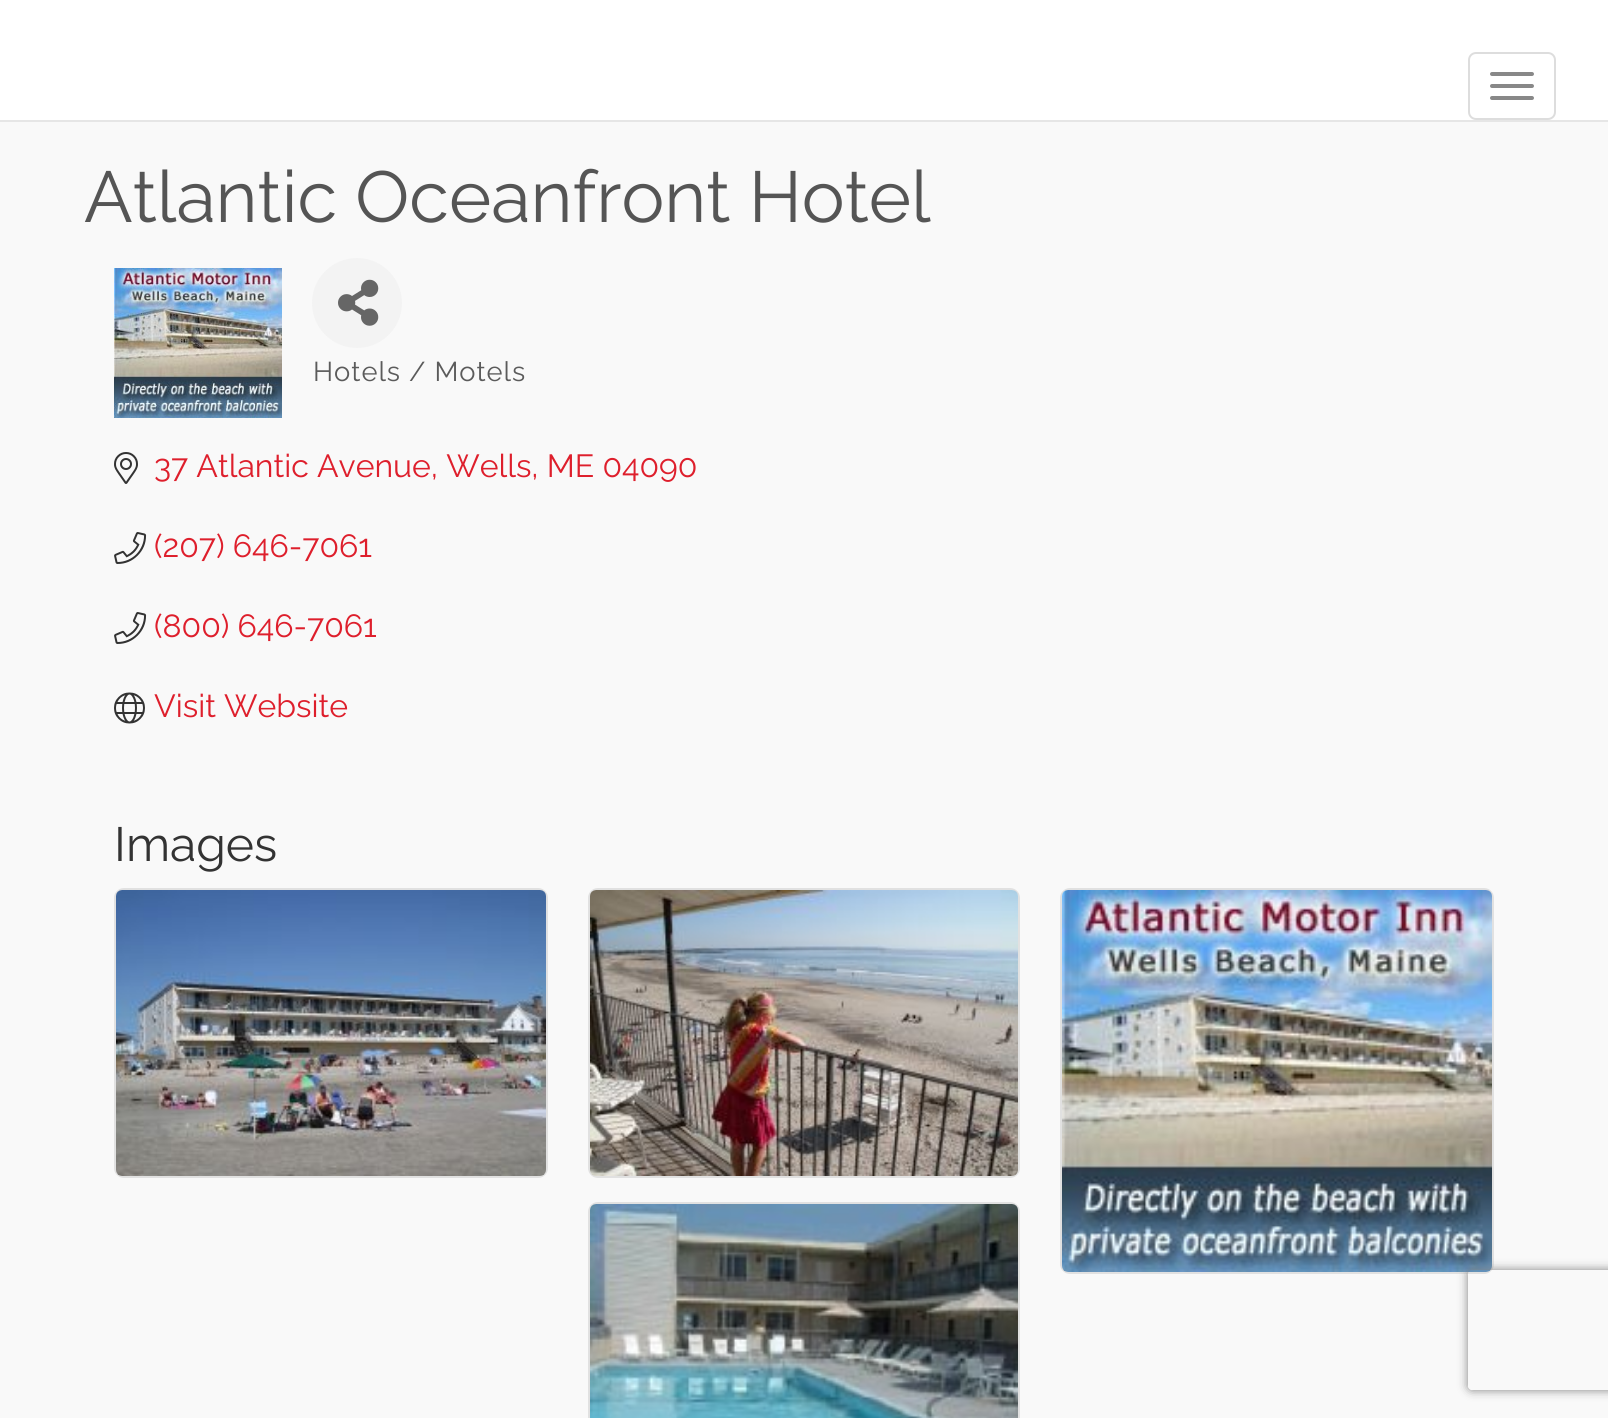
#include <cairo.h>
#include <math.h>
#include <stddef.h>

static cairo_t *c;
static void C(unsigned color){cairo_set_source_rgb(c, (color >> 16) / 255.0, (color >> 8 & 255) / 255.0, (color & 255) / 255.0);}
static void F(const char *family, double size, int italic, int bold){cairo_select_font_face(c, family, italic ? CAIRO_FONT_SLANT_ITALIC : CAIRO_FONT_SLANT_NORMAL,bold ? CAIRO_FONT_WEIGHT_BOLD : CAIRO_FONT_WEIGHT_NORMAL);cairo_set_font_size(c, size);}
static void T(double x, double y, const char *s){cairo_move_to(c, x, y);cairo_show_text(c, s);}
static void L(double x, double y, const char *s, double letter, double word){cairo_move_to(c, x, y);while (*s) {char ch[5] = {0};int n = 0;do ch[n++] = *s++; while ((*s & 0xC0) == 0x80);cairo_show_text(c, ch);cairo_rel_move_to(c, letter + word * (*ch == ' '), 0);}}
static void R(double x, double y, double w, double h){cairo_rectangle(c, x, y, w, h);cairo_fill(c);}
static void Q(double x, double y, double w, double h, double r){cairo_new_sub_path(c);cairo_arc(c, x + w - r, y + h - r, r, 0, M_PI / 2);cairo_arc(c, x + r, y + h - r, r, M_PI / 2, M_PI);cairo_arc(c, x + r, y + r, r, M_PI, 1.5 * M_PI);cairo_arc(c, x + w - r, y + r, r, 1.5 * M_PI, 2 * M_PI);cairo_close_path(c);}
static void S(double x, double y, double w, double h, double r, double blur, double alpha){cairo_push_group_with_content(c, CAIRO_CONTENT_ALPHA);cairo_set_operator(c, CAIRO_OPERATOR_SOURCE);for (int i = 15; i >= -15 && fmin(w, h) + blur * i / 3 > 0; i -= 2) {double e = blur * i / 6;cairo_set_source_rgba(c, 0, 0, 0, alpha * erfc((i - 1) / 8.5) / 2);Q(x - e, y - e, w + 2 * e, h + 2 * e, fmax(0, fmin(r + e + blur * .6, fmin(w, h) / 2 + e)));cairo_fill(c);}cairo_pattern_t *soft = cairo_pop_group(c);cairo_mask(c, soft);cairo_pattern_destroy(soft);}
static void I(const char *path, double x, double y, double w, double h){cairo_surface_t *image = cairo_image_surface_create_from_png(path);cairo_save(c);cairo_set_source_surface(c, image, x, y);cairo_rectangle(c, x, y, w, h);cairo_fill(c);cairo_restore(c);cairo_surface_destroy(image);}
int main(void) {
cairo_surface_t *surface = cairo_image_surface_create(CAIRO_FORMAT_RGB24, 1608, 1418);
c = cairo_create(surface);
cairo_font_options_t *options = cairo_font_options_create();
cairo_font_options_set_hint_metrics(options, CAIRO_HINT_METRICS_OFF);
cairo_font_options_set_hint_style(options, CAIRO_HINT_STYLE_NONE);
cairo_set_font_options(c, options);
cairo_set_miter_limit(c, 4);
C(0xf9f9f9);
cairo_paint(c);
C(0xffffff);
R(0,0,1608,120);
C(0xe6e6e6);
R(0,120,1608,2);
Q(1469,53,86,66,7);
C(0xdddddd);
cairo_stroke(c);
C(0x888888);
Q(1490,72,44,4,2);
cairo_fill(c);
Q(1490,84,44,4,2);
cairo_fill(c);
Q(1490,96,44,4,2);
cairo_fill(c);
F("Raleway",72,0,0);
C(0x555555);
T(84,222,"Atlantic Oceanfront Hotel");
I("1.png",114,268,168,150);
C(0xf3f3f3);
cairo_arc(c,357,303,45,0,2 * M_PI);
cairo_fill(c);
I("2.png",338,279,41,47);
F("Raleway",27.25,0,0);
C(0x5b5b5b);
L(313,381,"Hotels / Motels",1,0);
I("3.png",114,452,24,32);
F("Raleway",32,0,0);
C(0xde1f2c);
T(154,477,"37 Atlantic Avenue, Wells, ME 04090");
I("4.png",114,532,33,32);
T(154,557,"(207) 646-7061");
I("4.png",114,612,33,32);
T(154,637,"(800) 646-7061");
I("5.png",114,692,31,32);
T(154,717,"Visit Website");
F("Raleway",48,0,0);
C(0x333333);
T(114,861,"Images");
C(0xffffff);
Q(114,888,434,290,10);
cairo_fill(c);
Q(115,889,432,288,9);
cairo_set_source_rgba(c,0,0,0,0.12);
cairo_stroke(c);
I("6.png",116,890,430,286);
C(0xffffff);
Q(588,888,432,290,10);
cairo_fill(c);
Q(589,889,430,288,9);
cairo_set_source_rgba(c,0,0,0,0.12);
cairo_stroke(c);
I("7.png",590,890,428,286);
C(0xffffff);
Q(1060,888,434,386,10);
cairo_fill(c);
Q(1061,889,432,384,9);
cairo_set_source_rgba(c,0,0,0,0.12);
cairo_stroke(c);
I("8.png",1062,890,430,382);
C(0xffffff);
Q(588,1202,432,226,10);
cairo_fill(c);
Q(589,1203,430,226,9);
cairo_set_source_rgba(c,0,0,0,0.12);
cairo_stroke(c);
I("9.png",590,1204,428,214);
cairo_save(c);
cairo_set_fill_rule(c,CAIRO_FILL_RULE_EVEN_ODD);
cairo_new_path(c);
cairo_move_to(c,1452,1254);
cairo_line_to(c,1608,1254);
cairo_line_to(c,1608,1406);
cairo_line_to(c,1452,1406);
cairo_close_path(c);
cairo_move_to(c,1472,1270);
cairo_line_to(c,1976,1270);
cairo_curve_to(c,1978,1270,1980,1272,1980,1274);
cairo_line_to(c,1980,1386);
cairo_curve_to(c,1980,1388,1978,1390,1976,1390);
cairo_line_to(c,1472,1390);
cairo_curve_to(c,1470,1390,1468,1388,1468,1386);
cairo_line_to(c,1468,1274);
cairo_curve_to(c,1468,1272,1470,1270,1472,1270);
cairo_close_path(c);
cairo_clip(c);
C(0x808080);
S(1468,1270,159,120,4,5,1);
cairo_restore(c);
cairo_surface_write_to_png(surface, "o.png");
cairo_font_options_destroy(options);
cairo_destroy(c);
cairo_surface_destroy(surface);
return 0;
}
